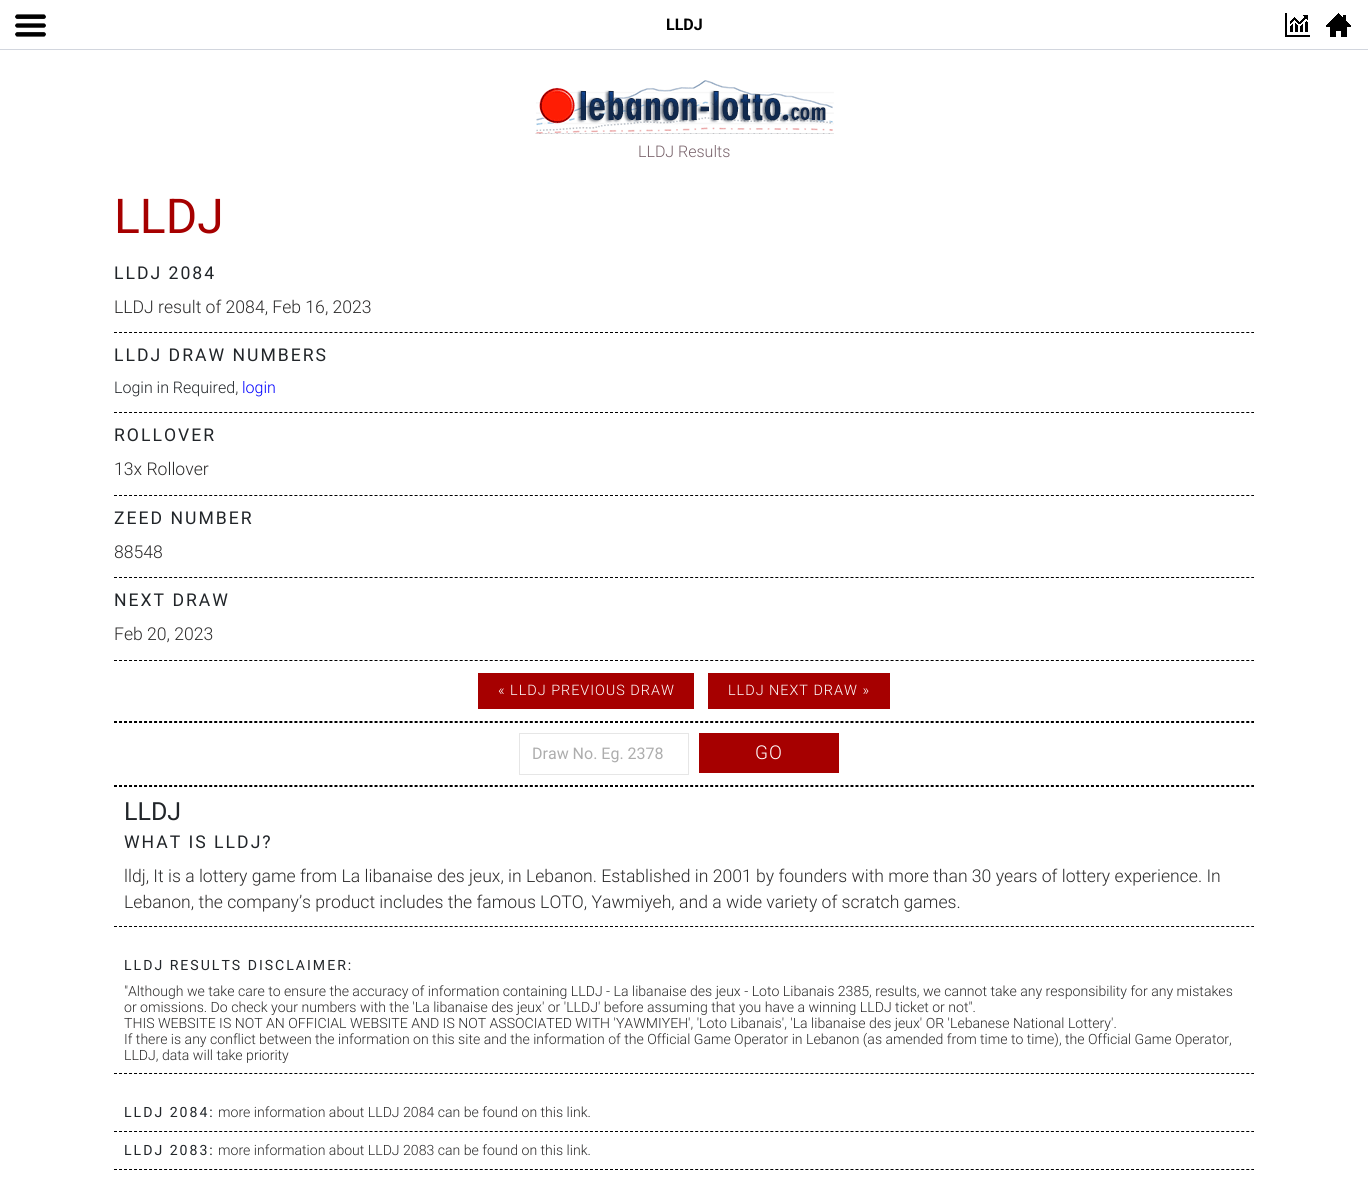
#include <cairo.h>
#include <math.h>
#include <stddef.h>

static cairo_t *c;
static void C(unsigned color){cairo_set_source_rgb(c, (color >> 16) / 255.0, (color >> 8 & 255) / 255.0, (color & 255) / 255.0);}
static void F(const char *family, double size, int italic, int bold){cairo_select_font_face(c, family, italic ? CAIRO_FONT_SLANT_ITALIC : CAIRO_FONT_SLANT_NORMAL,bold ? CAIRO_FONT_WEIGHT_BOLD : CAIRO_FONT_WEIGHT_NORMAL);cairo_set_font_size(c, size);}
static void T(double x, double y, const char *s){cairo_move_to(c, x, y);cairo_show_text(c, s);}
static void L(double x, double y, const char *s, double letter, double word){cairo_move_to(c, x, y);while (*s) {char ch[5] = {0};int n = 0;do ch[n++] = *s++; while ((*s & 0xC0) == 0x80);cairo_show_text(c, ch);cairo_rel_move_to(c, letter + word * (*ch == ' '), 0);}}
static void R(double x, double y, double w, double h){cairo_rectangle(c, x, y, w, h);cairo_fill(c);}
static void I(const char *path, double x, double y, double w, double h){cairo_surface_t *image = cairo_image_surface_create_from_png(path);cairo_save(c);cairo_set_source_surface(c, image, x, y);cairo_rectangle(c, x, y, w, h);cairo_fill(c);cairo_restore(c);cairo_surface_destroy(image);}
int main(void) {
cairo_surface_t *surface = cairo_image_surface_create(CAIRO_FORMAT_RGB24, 1368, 1186);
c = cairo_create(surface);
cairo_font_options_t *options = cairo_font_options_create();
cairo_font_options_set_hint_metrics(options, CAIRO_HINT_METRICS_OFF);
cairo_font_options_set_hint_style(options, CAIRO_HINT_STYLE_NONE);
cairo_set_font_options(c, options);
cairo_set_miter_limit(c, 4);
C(0xffffff);
cairo_paint(c);
C(0xd2d6de);
R(0,49,1368,1);
I("1.png",15,14,31,23);
F("Roboto",16,0,1);
C(0x000000);
T(666,30,"LLDJ");
I("2.png",1285,13,25,24);
I("3.png",1326,13,25,24);
I("4.png",535,80,299,54);
F("Roboto Light",16,0,0);
C(0x78626a);
T(638,157,"LLDJ Results");
F("Roboto",48,0,0);
C(0xa60000);
T(114,233,"LLDJ");
cairo_new_path(c);
cairo_move_to(c,114,332.5);
cairo_line_to(c,1254,332.5);
C(0x000000);
cairo_set_line_width(c,1);
cairo_set_dash(c,(double[]){3,2.01},2,0);
cairo_stroke(c);
F("Roboto",17.6,0,0);
C(0x212529);
L(114,279,"LLDJ 2084",2,0);
F("Roboto Light",17.6,0,0);
C(0x2b2a2a);
T(114,313,"LLDJ result of 2084, Feb 16, 2023");
cairo_new_path(c);
cairo_move_to(c,114,412.5);
cairo_line_to(c,1254,412.5);
C(0x000000);
cairo_stroke(c);
F("Roboto",17.6,0,0);
C(0x212529);
L(114,361,"LLDJ DRAW NUMBERS",2,0);
F("Roboto Light",16,0,0);
T(114,393,"Login in Required,");
C(0x0000ff);
T(242,393,"login");
cairo_new_path(c);
cairo_move_to(c,114,495.5);
cairo_line_to(c,1254,495.5);
C(0x000000);
cairo_stroke(c);
F("Roboto",17.6,0,0);
C(0x212529);
L(114,441,"ROLLOVER",2,0);
F("Roboto Light",17.6,0,0);
C(0x2b2a2a);
T(114,475,"13x Rollover");
cairo_new_path(c);
cairo_move_to(c,114,577.5);
cairo_line_to(c,1254,577.5);
C(0x000000);
cairo_stroke(c);
F("Roboto",17.6,0,0);
C(0x212529);
L(114,524,"ZEED NUMBER",2,0);
F("Roboto Light",17.6,0,0);
C(0x2b2a2a);
T(114,558,"88548");
cairo_new_path(c);
cairo_move_to(c,114,660.5);
cairo_line_to(c,1254,660.5);
C(0x000000);
cairo_stroke(c);
F("Roboto",17.6,0,0);
C(0x212529);
L(114,606,"NEXT DRAW",2,0);
F("Roboto Light",17.6,0,0);
C(0x2b2a2a);
T(114,640,"Feb 20, 2023");
cairo_new_path(c);
cairo_move_to(c,114,721.5);
cairo_line_to(c,1254,721.5);
C(0x000000);
cairo_stroke(c);
C(0xa60000);
R(478,673,216,36);
F("Roboto Light",14.4,0,0);
C(0xffffff);
L(498,695,"« LLDJ PREVIOUS DRAW",1,0);
C(0xa60000);
R(708,673,182,36);
C(0xffffff);
L(728,695,"LLDJ NEXT DRAW »",1,0);
cairo_new_path(c);
cairo_move_to(c,114,722.5);
cairo_line_to(c,1254,722.5);
C(0x000000);
cairo_stroke(c);
cairo_new_path(c);
cairo_move_to(c,114,785.5);
cairo_line_to(c,1254,785.5);
cairo_stroke(c);
cairo_rectangle(c,519.5,733.5,169,41);
C(0xe6e6e6);
cairo_set_dash(c,NULL,0,0);
cairo_stroke(c);
F("Roboto",16,0,0);
C(0xadadad);
T(532,759,"Draw No. Eg. 2378");
C(0xa60000);
R(699,733,140,40);
F("Roboto Light",19,0,0);
C(0xffffff);
L(755,759,"GO",1,0);
cairo_new_path(c);
cairo_move_to(c,114,786.5);
cairo_line_to(c,1254,786.5);
C(0x000000);
cairo_set_dash(c,(double[]){3,2.01},2,0);
cairo_stroke(c);
cairo_new_path(c);
cairo_move_to(c,114,926.5);
cairo_line_to(c,1254,926.5);
cairo_stroke(c);
F("Roboto",25,0,0);
C(0x212529);
T(124,820,"LLDJ");
F("Roboto",17.6,0,0);
L(124,848,"WHAT IS LLDJ?",2,0);
F("Roboto Light",17.6,0,0);
C(0x2b2a2a);
T(124,882,"lldj, It is a lottery game from La libanaise des jeux, in Lebanon. Established in 2001 by founders with more than 30 years of lottery experience. In");
T(124,908,"Lebanon, the company’s product includes the famous LOTO, Yawmiyeh, and a wide variety of scratch games.");
cairo_new_path(c);
cairo_move_to(c,114,1073.5);
cairo_line_to(c,1254,1073.5);
C(0x000000);
cairo_stroke(c);
F("Roboto",14.08,0,0);
C(0x212529);
L(124,970,"LLDJ RESULTS DISCLAIMER:",2,0);
F("Roboto Light",14.08,0,0);
C(0x2b2a2a);
T(124,996,"\"Although we take care to ensure the accuracy of information containing LLDJ - La libanaise des jeux - Loto Libanais 2385, results, we cannot take any responsibility for any mistakes");
T(124,1012,"or omissions. Do check your numbers with the 'La libanaise des jeux' or 'LLDJ' before assuming that you have a winning LLDJ ticket or not\".");
T(124,1028,"THIS WEBSITE IS NOT AN OFFICIAL WEBSITE AND IS NOT ASSOCIATED WITH 'YAWMIYEH', 'Loto Libanais', 'La libanaise des jeux' OR 'Lebanese National Lottery'.");
T(124,1044,"If there is any conflict between the information on this site and the information of the Official Game Operator in Lebanon (as amended from time to time), the Official Game Operator,");
T(124,1060,"LLDJ, data will take priority");
cairo_new_path(c);
cairo_move_to(c,114,1131.5);
cairo_line_to(c,1254,1131.5);
C(0x000000);
cairo_stroke(c);
F("Roboto",14.08,0,0);
C(0x212529);
L(124,1117,"LLDJ 2084:",2,0);
F("Roboto Light",14.08,0,0);
C(0x2b2a2a);
T(218,1117,"more information about LLDJ 2084 can be found on this link.");
cairo_new_path(c);
cairo_move_to(c,114,1169.5);
cairo_line_to(c,1254,1169.5);
C(0x000000);
cairo_stroke(c);
F("Roboto",14.08,0,0);
C(0x212529);
L(124,1155,"LLDJ 2083:",2,0);
F("Roboto Light",14.08,0,0);
C(0x2b2a2a);
T(218,1155,"more information about LLDJ 2083 can be found on this link.");
cairo_surface_write_to_png(surface, "o.png");
cairo_font_options_destroy(options);
cairo_destroy(c);
cairo_surface_destroy(surface);
return 0;
}
